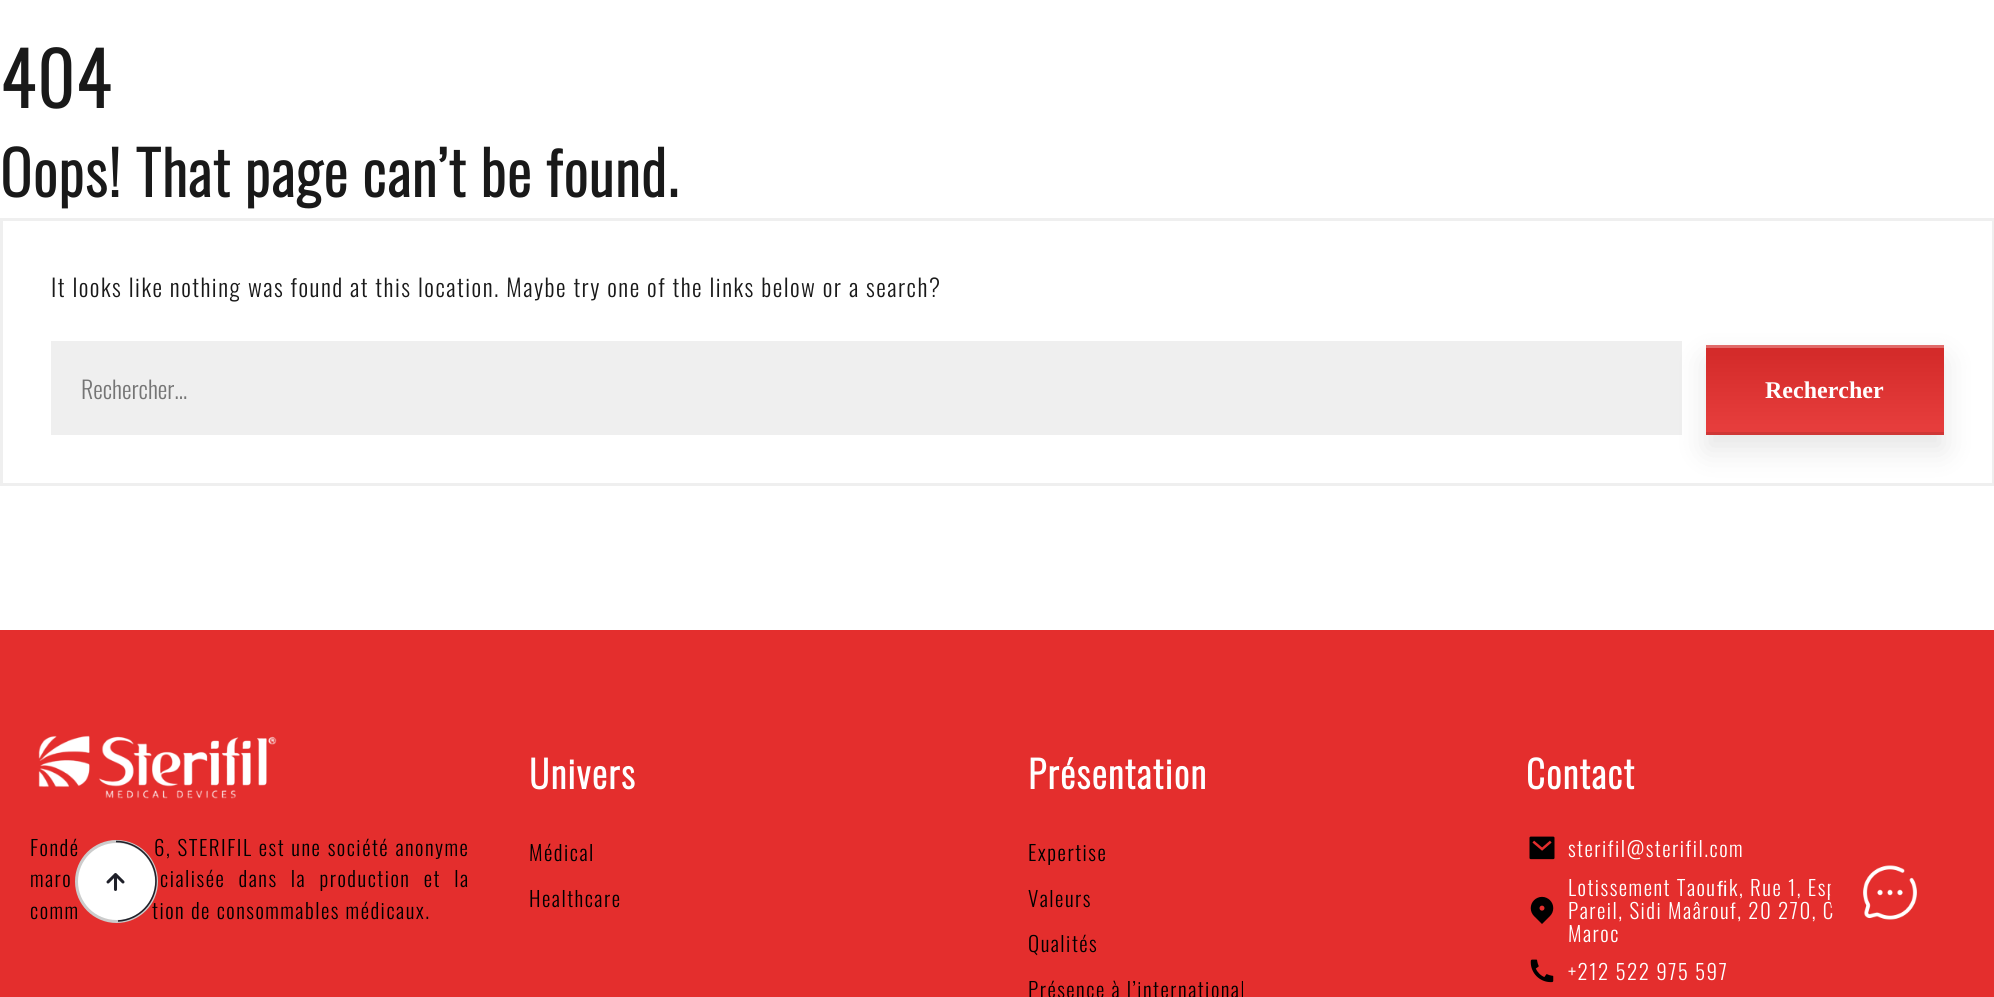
#include <cairo.h>
#include <math.h>
#include <stddef.h>

static cairo_t *c;
static void C(unsigned color){cairo_set_source_rgb(c, (color >> 16) / 255.0, (color >> 8 & 255) / 255.0, (color & 255) / 255.0);}
static void F(const char *family, double size, int italic, int bold){cairo_select_font_face(c, family, italic ? CAIRO_FONT_SLANT_ITALIC : CAIRO_FONT_SLANT_NORMAL,bold ? CAIRO_FONT_WEIGHT_BOLD : CAIRO_FONT_WEIGHT_NORMAL);cairo_set_font_size(c, size);}
static void T(double x, double y, const char *s){cairo_move_to(c, x, y);cairo_show_text(c, s);}
static void L(double x, double y, const char *s, double letter, double word){cairo_move_to(c, x, y);while (*s) {char ch[5] = {0};int n = 0;do ch[n++] = *s++; while ((*s & 0xC0) == 0x80);cairo_show_text(c, ch);cairo_rel_move_to(c, letter + word * (*ch == ' '), 0);}}
static void R(double x, double y, double w, double h){cairo_rectangle(c, x, y, w, h);cairo_fill(c);}
static void Q(double x, double y, double w, double h, double r){cairo_new_sub_path(c);cairo_arc(c, x + w - r, y + h - r, r, 0, M_PI / 2);cairo_arc(c, x + r, y + h - r, r, M_PI / 2, M_PI);cairo_arc(c, x + r, y + r, r, M_PI, 1.5 * M_PI);cairo_arc(c, x + w - r, y + r, r, 1.5 * M_PI, 2 * M_PI);cairo_close_path(c);}
static void S(double x, double y, double w, double h, double r, double blur, double alpha){cairo_push_group_with_content(c, CAIRO_CONTENT_ALPHA);cairo_set_operator(c, CAIRO_OPERATOR_SOURCE);for (int i = 15; i >= -15 && fmin(w, h) + blur * i / 3 > 0; i -= 2) {double e = blur * i / 6;cairo_set_source_rgba(c, 0, 0, 0, alpha * erfc((i - 1) / 8.5) / 2);Q(x - e, y - e, w + 2 * e, h + 2 * e, fmax(0, fmin(r + e + blur * .6, fmin(w, h) / 2 + e)));cairo_fill(c);}cairo_pattern_t *soft = cairo_pop_group(c);cairo_mask(c, soft);cairo_pattern_destroy(soft);}
static void I(const char *path, double x, double y, double w, double h){cairo_surface_t *image = cairo_image_surface_create_from_png(path);cairo_save(c);cairo_set_source_surface(c, image, x, y);cairo_rectangle(c, x, y, w, h);cairo_fill(c);cairo_restore(c);cairo_surface_destroy(image);}
int main(void) {
cairo_surface_t *surface = cairo_image_surface_create(CAIRO_FORMAT_RGB24, 1994, 997);
c = cairo_create(surface);
cairo_font_options_t *options = cairo_font_options_create();
cairo_font_options_set_hint_metrics(options, CAIRO_HINT_METRICS_OFF);
cairo_font_options_set_hint_style(options, CAIRO_HINT_STYLE_NONE);
cairo_set_font_options(c, options);
cairo_set_miter_limit(c, 4);
cairo_pattern_t *gradient;
C(0xffffff);
cairo_paint(c);
F("Oswald",72,0,1);
C(0x191919);
L(0,108,"404",1.5,0);
F("Oswald",60,0,1);
L(0,197,"Oops! That page can’t be found.",1.5,0);
cairo_rectangle(c,1.5,219.5,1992,265);
C(0xefefef);
cairo_set_line_width(c,3);
cairo_stroke(c);
F("Oswald Light",24,0,0);
C(0x191919);
L(51,297,"It looks like nothing was found at this location. Maybe try one of the links below or a search?",1.5,0);
C(0xefefef);
R(51,341,1631,94);
C(0x757575);
T(81,399,"Rechercher…");
C(0x000000);
S(1706,360,238,90,0,15,.1);
gradient = cairo_pattern_create_linear(1825,345,1825,435);
cairo_pattern_add_color_stop_rgba(gradient,.1,0.831,0.169,0.165,1);
cairo_pattern_add_color_stop_rgba(gradient,.9,0.902,0.239,0.235,1);
cairo_set_source(c,gradient);
cairo_pattern_destroy(gradient);
R(1706,348,238,84);
C(0xcf3736);
R(1706,432,238,3);
C(0xe16b6a);
R(1706,345,238,3);
F("Liberation Serif",24,0,1);
C(0xffffff);
T(1765,398,"Rechercher");
C(0xe42e2d);
R(0,630,1994,367);
I("1.png",38,735,239,64);
F("Oswald Light",21,0,0);
C(0x000000);
L(30,856,"Fondé",1.5,.5);
L(154,856,"6, STERIFIL est une société anonyme",1.5,.5);
L(30,887,"maro",1.5,7.5);
L(160,887,"cialisée dans la production et la",1.5,7.5);
L(30,919,"comm",1.5,0);
L(152,919,"tion de consommables médicaux.",1.5,0);
F("Oswald",37.5,0,1);
C(0xffffff);
L(529,789,"Univers",1.5,0);
F("Oswald Light",21,0,0);
C(0x000000);
L(529,861,"Médical",1.5,0);
L(529,907,"Healthcare",1.5,0);
F("Oswald",37.5,0,1);
C(0xffffff);
L(1028,789,"Présentation",1.5,0);
F("Oswald Light",21,0,0);
C(0x000000);
L(1028,861,"Expertise",1.5,0);
L(1028,907,"Valeurs",1.5,0);
L(1028,952,"Qualités",1.5,0);
L(1028,998,"Présence à l’international",1.5,0);
F("Oswald",37.5,0,1);
C(0xffffff);
L(1526,789,"Contact",1.5,0);
I("2.png",1529,836,26,24);
F("Oswald Light",21,0,0);
L(1568,857,"sterifil@sterifil.com",1.5,0);
I("3.png",1530,896,24,28);
L(1568,896,"Lotissement Taou",1.5,0);
F("Liberation Sans",21,0,0);
L(1717,896,"ﬁ",1.5,0);
F("Oswald Light",21,0,0);
L(1729,896,"k, Rue 1, Esp",1.5,0);
L(1568,919,"Pareil, Sidi Maârouf, 20 270, C",1.5,0);
L(1568,942,"Maroc",1.5,0);
I("4.png",1530,959,24,24);
L(1568,980,"+212 522 975 597",1.5,0);
C(0xe42e2d);
cairo_new_path(c);
cairo_arc(c,1890,893,60,0,2 * M_PI);
cairo_fill(c);
I("5.png",1863,865,54,55);
C(0xffffff);
cairo_arc(c,116.5,881.5,40,0,2 * M_PI);
cairo_fill_preserve(c);
C(0xcccccc);
cairo_stroke(c);
cairo_new_path(c);
cairo_move_to(c,116,841.5);
cairo_curve_to(c,138,841.5,156,859.5,156,881);
cairo_curve_to(c,156,902.5,139,920,118,921);
C(0x1f2029);
cairo_set_line_width(c,1.6);
cairo_stroke(c);
I("6.png",106,873,19,18);
cairo_surface_write_to_png(surface, "o.png");
cairo_font_options_destroy(options);
cairo_destroy(c);
cairo_surface_destroy(surface);
return 0;
}
